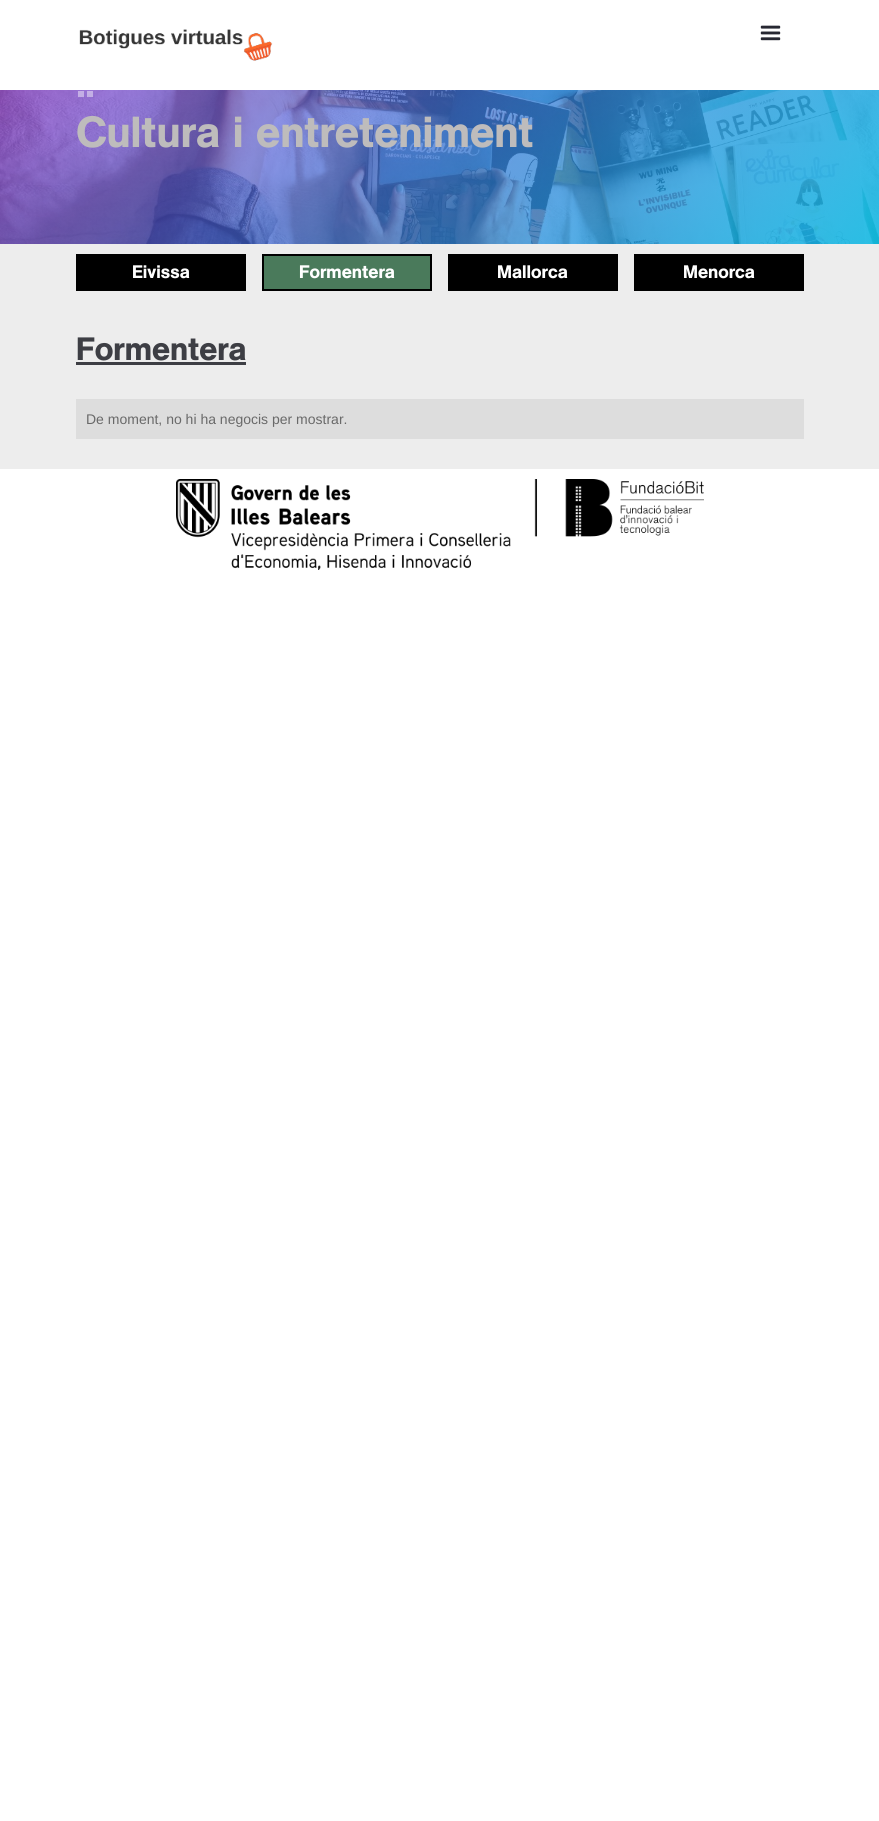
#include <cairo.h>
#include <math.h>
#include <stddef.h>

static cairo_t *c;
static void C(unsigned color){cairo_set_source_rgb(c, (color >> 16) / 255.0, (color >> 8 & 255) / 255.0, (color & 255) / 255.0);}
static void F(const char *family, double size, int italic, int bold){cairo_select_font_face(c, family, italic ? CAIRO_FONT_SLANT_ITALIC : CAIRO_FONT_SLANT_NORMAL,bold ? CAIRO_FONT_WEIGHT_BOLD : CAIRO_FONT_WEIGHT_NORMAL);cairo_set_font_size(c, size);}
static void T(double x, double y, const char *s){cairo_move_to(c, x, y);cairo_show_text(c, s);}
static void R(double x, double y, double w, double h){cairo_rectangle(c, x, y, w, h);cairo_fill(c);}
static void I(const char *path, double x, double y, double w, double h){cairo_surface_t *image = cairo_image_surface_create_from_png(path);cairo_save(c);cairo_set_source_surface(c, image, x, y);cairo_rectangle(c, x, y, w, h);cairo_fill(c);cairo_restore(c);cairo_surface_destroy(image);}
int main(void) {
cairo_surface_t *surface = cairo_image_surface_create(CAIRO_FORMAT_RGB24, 879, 1821);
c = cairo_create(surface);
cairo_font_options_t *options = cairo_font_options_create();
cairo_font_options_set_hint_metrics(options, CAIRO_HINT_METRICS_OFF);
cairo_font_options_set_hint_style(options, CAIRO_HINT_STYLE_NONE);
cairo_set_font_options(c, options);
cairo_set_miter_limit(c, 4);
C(0xffffff);
cairo_paint(c);
I("1.png",79,29,194,32);
I("2.png",760,25,21,16);
I("3.png",0,90,879,154);
I("4.png",78,91,15,6);
F("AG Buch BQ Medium",43,0,0);
C(0xbebcbc);
T(76,147,"Cultura i entreteniment");
C(0xededed);
R(0,244,879,225);
C(0x000000);
R(76,254,170,37);
F("AG Buch BQ Medium",18,0,0);
C(0xffffff);
T(132,278,"Eivissa");
C(0x4a7a5b);
cairo_rectangle(c,263,255,168,35);
cairo_fill_preserve(c);
C(0x000000);
cairo_stroke(c);
C(0xffffff);
T(299,278,"Formentera");
C(0x000000);
R(448,254,170,37);
C(0xffffff);
T(497,278,"Mallorca");
C(0x000000);
R(634,254,170,37);
C(0xffffff);
T(683,278,"Menorca");
F("AG Buch BQ Medium",32,0,0);
C(0x3d3e44);
T(76,360,"Formentera");
R(76,362,170,3);
C(0xdddddd);
R(76,399,728,40);
F("Liberation Sans",14,0,0);
C(0x696969);
T(86,424,"De moment, no hi ha negocis per mostrar.");
I("5.png",176,479,528,91);
cairo_surface_write_to_png(surface, "o.png");
cairo_font_options_destroy(options);
cairo_destroy(c);
cairo_surface_destroy(surface);
return 0;
}
